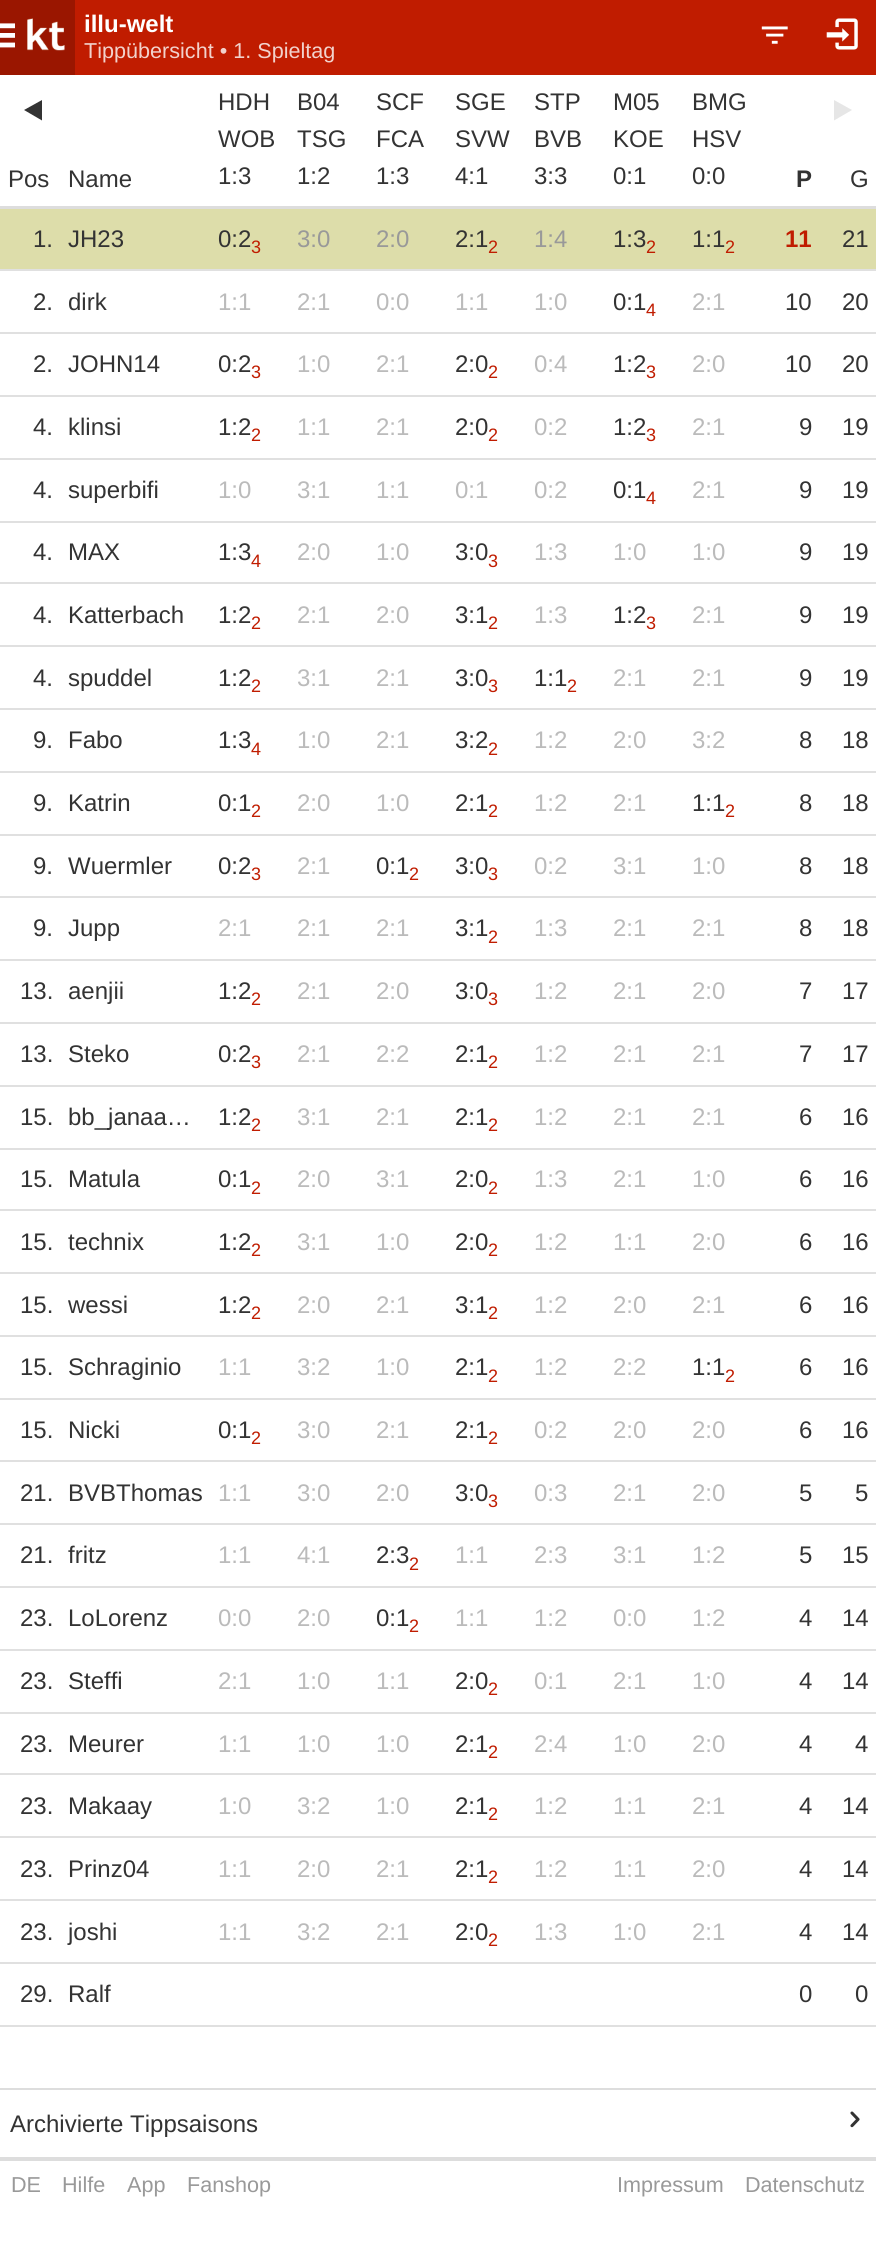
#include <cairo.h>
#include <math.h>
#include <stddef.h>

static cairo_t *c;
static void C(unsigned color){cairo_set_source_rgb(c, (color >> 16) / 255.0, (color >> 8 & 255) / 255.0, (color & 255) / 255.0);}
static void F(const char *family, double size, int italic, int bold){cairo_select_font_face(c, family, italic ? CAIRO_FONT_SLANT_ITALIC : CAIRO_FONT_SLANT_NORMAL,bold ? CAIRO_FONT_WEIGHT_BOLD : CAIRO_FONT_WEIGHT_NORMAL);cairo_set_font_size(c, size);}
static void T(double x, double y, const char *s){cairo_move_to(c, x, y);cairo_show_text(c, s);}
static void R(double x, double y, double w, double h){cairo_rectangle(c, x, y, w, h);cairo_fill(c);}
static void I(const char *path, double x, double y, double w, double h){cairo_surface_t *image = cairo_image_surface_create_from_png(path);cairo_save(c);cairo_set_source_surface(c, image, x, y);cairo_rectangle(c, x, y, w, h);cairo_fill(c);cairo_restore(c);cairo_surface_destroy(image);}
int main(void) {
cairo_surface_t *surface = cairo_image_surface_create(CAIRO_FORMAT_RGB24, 876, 2241);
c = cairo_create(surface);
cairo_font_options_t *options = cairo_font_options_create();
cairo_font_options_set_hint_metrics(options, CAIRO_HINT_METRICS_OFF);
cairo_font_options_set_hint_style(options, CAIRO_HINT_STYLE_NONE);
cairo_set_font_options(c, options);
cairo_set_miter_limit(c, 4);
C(0xffffff);
cairo_paint(c);
C(0xc01c00);
R(75,0,801,75);
C(0x9a1600);
R(0,0,75,75);
I("1.png",0,23,15,25);
I("2.png",27,18,38,33);
F("Liberation Sans",24,0,1);
C(0xffffff);
T(84,32,"illu-welt");
F("Liberation Sans",21.6,0,0);
C(0xf2d2cc);
T(84,58,"Tippübersicht • 1. Spieltag");
I("3.png",761,26,27,18);
I("4.png",826,18,32,32);
C(0xdddddd);
R(0,206,876,3);
C(0x333333);
cairo_new_path(c);
cairo_move_to(c,42,100);
cairo_line_to(c,42,120.5);
cairo_line_to(c,24,110);
cairo_close_path(c);
cairo_fill(c);
F("Liberation Sans",24,0,0);
T(8,187,"Pos");
T(68,187,"Name");
T(218,110,"HDH");
T(218,147,"WOB");
T(218,184,"1:3");
T(297,110,"B04");
T(297,147,"TSG");
T(297,184,"1:2");
T(376,110,"SCF");
T(376,147,"FCA");
T(376,184,"1:3");
T(455,110,"SGE");
T(455,147,"SVW");
T(455,184,"4:1");
T(534,110,"STP");
T(534,147,"BVB");
T(534,184,"3:3");
T(613,110,"M05");
T(613,147,"KOE");
T(613,184,"0:1");
T(692,110,"BMG");
T(692,147,"HSV");
T(692,184,"0:0");
F("Liberation Sans",24,0,1);
T(796,187,"P");
C(0xe6e6e6);
cairo_new_path(c);
cairo_move_to(c,834,100);
cairo_line_to(c,834,120.5);
cairo_line_to(c,852,110);
cairo_close_path(c);
cairo_fill(c);
F("Liberation Sans",24,0,0);
C(0x333333);
T(850,187,"G");
C(0xddddaa);
R(0,209,876,60);
C(0xe0e0e0);
R(0,269,876,2);
C(0x333333);
T(33,247,"1.");
T(68,247,"JH23");
T(218,247,"0:2");
F("Liberation Sans",18,0,0);
C(0xc01c00);
T(251,253,"3");
F("Liberation Sans",24,0,0);
C(0x999999);
T(297,247,"3:0");
T(376,247,"2:0");
C(0x333333);
T(455,247,"2:1");
F("Liberation Sans",18,0,0);
C(0xc01c00);
T(488,253,"2");
F("Liberation Sans",24,0,0);
C(0x999999);
T(534,247,"1:4");
C(0x333333);
T(613,247,"1:3");
F("Liberation Sans",18,0,0);
C(0xc01c00);
T(646,253,"2");
F("Liberation Sans",24,0,0);
C(0x333333);
T(692,247,"1:1");
F("Liberation Sans",18,0,0);
C(0xc01c00);
T(725,253,"2");
F("Liberation Sans",24,0,1);
T(785,247,"11");
F("Liberation Sans",24,0,0);
C(0x333333);
T(842,247,"21");
C(0xe0e0e0);
R(0,332,876,2);
C(0x333333);
T(33,310,"2.");
T(68,310,"dirk");
C(0xbbbbbb);
T(218,310,"1:1");
T(297,310,"2:1");
T(376,310,"0:0");
T(455,310,"1:1");
T(534,310,"1:0");
C(0x333333);
T(613,310,"0:1");
F("Liberation Sans",18,0,0);
C(0xc01c00);
T(646,316,"4");
F("Liberation Sans",24,0,0);
C(0xbbbbbb);
T(692,310,"2:1");
C(0x333333);
T(785,310,"10");
T(842,310,"20");
C(0xe0e0e0);
R(0,395,876,2);
C(0x333333);
T(33,372,"2.");
T(68,372,"JOHN14");
T(218,372,"0:2");
F("Liberation Sans",18,0,0);
C(0xc01c00);
T(251,378,"3");
F("Liberation Sans",24,0,0);
C(0xbbbbbb);
T(297,372,"1:0");
T(376,372,"2:1");
C(0x333333);
T(455,372,"2:0");
F("Liberation Sans",18,0,0);
C(0xc01c00);
T(488,378,"2");
F("Liberation Sans",24,0,0);
C(0xbbbbbb);
T(534,372,"0:4");
C(0x333333);
T(613,372,"1:2");
F("Liberation Sans",18,0,0);
C(0xc01c00);
T(646,378,"3");
F("Liberation Sans",24,0,0);
C(0xbbbbbb);
T(692,372,"2:0");
C(0x333333);
T(785,372,"10");
T(842,372,"20");
C(0xe0e0e0);
R(0,458,876,2);
C(0x333333);
T(33,435,"4.");
T(68,435,"klinsi");
T(218,435,"1:2");
F("Liberation Sans",18,0,0);
C(0xc01c00);
T(251,441,"2");
F("Liberation Sans",24,0,0);
C(0xbbbbbb);
T(297,435,"1:1");
T(376,435,"2:1");
C(0x333333);
T(455,435,"2:0");
F("Liberation Sans",18,0,0);
C(0xc01c00);
T(488,441,"2");
F("Liberation Sans",24,0,0);
C(0xbbbbbb);
T(534,435,"0:2");
C(0x333333);
T(613,435,"1:2");
F("Liberation Sans",18,0,0);
C(0xc01c00);
T(646,441,"3");
F("Liberation Sans",24,0,0);
C(0xbbbbbb);
T(692,435,"2:1");
C(0x333333);
T(799,435,"9");
T(842,435,"19");
C(0xe0e0e0);
R(0,521,876,2);
C(0x333333);
T(33,498,"4.");
T(68,498,"superbifi");
C(0xbbbbbb);
T(218,498,"1:0");
T(297,498,"3:1");
T(376,498,"1:1");
T(455,498,"0:1");
T(534,498,"0:2");
C(0x333333);
T(613,498,"0:1");
F("Liberation Sans",18,0,0);
C(0xc01c00);
T(646,504,"4");
F("Liberation Sans",24,0,0);
C(0xbbbbbb);
T(692,498,"2:1");
C(0x333333);
T(799,498,"9");
T(842,498,"19");
C(0xe0e0e0);
R(0,582,876,2);
C(0x333333);
T(33,560,"4.");
T(68,560,"MAX");
T(218,560,"1:3");
F("Liberation Sans",18,0,0);
C(0xc01c00);
T(251,567,"4");
F("Liberation Sans",24,0,0);
C(0xbbbbbb);
T(297,560,"2:0");
T(376,560,"1:0");
C(0x333333);
T(455,560,"3:0");
F("Liberation Sans",18,0,0);
C(0xc01c00);
T(488,567,"3");
F("Liberation Sans",24,0,0);
C(0xbbbbbb);
T(534,560,"1:3");
T(613,560,"1:0");
T(692,560,"1:0");
C(0x333333);
T(799,560,"9");
T(842,560,"19");
C(0xe0e0e0);
R(0,645,876,2);
C(0x333333);
T(33,623,"4.");
T(68,623,"Katterbach");
T(218,623,"1:2");
F("Liberation Sans",18,0,0);
C(0xc01c00);
T(251,629,"2");
F("Liberation Sans",24,0,0);
C(0xbbbbbb);
T(297,623,"2:1");
T(376,623,"2:0");
C(0x333333);
T(455,623,"3:1");
F("Liberation Sans",18,0,0);
C(0xc01c00);
T(488,629,"2");
F("Liberation Sans",24,0,0);
C(0xbbbbbb);
T(534,623,"1:3");
C(0x333333);
T(613,623,"1:2");
F("Liberation Sans",18,0,0);
C(0xc01c00);
T(646,629,"3");
F("Liberation Sans",24,0,0);
C(0xbbbbbb);
T(692,623,"2:1");
C(0x333333);
T(799,623,"9");
T(842,623,"19");
C(0xe0e0e0);
R(0,708,876,2);
C(0x333333);
T(33,686,"4.");
T(68,686,"spuddel");
T(218,686,"1:2");
F("Liberation Sans",18,0,0);
C(0xc01c00);
T(251,692,"2");
F("Liberation Sans",24,0,0);
C(0xbbbbbb);
T(297,686,"3:1");
T(376,686,"2:1");
C(0x333333);
T(455,686,"3:0");
F("Liberation Sans",18,0,0);
C(0xc01c00);
T(488,692,"3");
F("Liberation Sans",24,0,0);
C(0x333333);
T(534,686,"1:1");
F("Liberation Sans",18,0,0);
C(0xc01c00);
T(567,692,"2");
F("Liberation Sans",24,0,0);
C(0xbbbbbb);
T(613,686,"2:1");
T(692,686,"2:1");
C(0x333333);
T(799,686,"9");
T(842,686,"19");
C(0xe0e0e0);
R(0,771,876,2);
C(0x333333);
T(33,748,"9.");
T(68,748,"Fabo");
T(218,748,"1:3");
F("Liberation Sans",18,0,0);
C(0xc01c00);
T(251,755,"4");
F("Liberation Sans",24,0,0);
C(0xbbbbbb);
T(297,748,"1:0");
T(376,748,"2:1");
C(0x333333);
T(455,748,"3:2");
F("Liberation Sans",18,0,0);
C(0xc01c00);
T(488,755,"2");
F("Liberation Sans",24,0,0);
C(0xbbbbbb);
T(534,748,"1:2");
T(613,748,"2:0");
T(692,748,"3:2");
C(0x333333);
T(799,748,"8");
T(842,748,"18");
C(0xe0e0e0);
R(0,834,876,2);
C(0x333333);
T(33,811,"9.");
T(68,811,"Katrin");
T(218,811,"0:1");
F("Liberation Sans",18,0,0);
C(0xc01c00);
T(251,817,"2");
F("Liberation Sans",24,0,0);
C(0xbbbbbb);
T(297,811,"2:0");
T(376,811,"1:0");
C(0x333333);
T(455,811,"2:1");
F("Liberation Sans",18,0,0);
C(0xc01c00);
T(488,817,"2");
F("Liberation Sans",24,0,0);
C(0xbbbbbb);
T(534,811,"1:2");
T(613,811,"2:1");
C(0x333333);
T(692,811,"1:1");
F("Liberation Sans",18,0,0);
C(0xc01c00);
T(725,817,"2");
F("Liberation Sans",24,0,0);
C(0x333333);
T(799,811,"8");
T(842,811,"18");
C(0xe0e0e0);
R(0,896,876,2);
C(0x333333);
T(33,874,"9.");
T(68,874,"Wuermler");
T(218,874,"0:2");
F("Liberation Sans",18,0,0);
C(0xc01c00);
T(251,880,"3");
F("Liberation Sans",24,0,0);
C(0xbbbbbb);
T(297,874,"2:1");
C(0x333333);
T(376,874,"0:1");
F("Liberation Sans",18,0,0);
C(0xc01c00);
T(409,880,"2");
F("Liberation Sans",24,0,0);
C(0x333333);
T(455,874,"3:0");
F("Liberation Sans",18,0,0);
C(0xc01c00);
T(488,880,"3");
F("Liberation Sans",24,0,0);
C(0xbbbbbb);
T(534,874,"0:2");
T(613,874,"3:1");
T(692,874,"1:0");
C(0x333333);
T(799,874,"8");
T(842,874,"18");
C(0xe0e0e0);
R(0,959,876,2);
C(0x333333);
T(33,936,"9.");
T(68,936,"Jupp");
C(0xbbbbbb);
T(218,936,"2:1");
T(297,936,"2:1");
T(376,936,"2:1");
C(0x333333);
T(455,936,"3:1");
F("Liberation Sans",18,0,0);
C(0xc01c00);
T(488,943,"2");
F("Liberation Sans",24,0,0);
C(0xbbbbbb);
T(534,936,"1:3");
T(613,936,"2:1");
T(692,936,"2:1");
C(0x333333);
T(799,936,"8");
T(842,936,"18");
C(0xe0e0e0);
R(0,1022,876,2);
C(0x333333);
T(20,999,"13.");
T(68,999,"aenjii");
T(218,999,"1:2");
F("Liberation Sans",18,0,0);
C(0xc01c00);
T(251,1005,"2");
F("Liberation Sans",24,0,0);
C(0xbbbbbb);
T(297,999,"2:1");
T(376,999,"2:0");
C(0x333333);
T(455,999,"3:0");
F("Liberation Sans",18,0,0);
C(0xc01c00);
T(488,1005,"3");
F("Liberation Sans",24,0,0);
C(0xbbbbbb);
T(534,999,"1:2");
T(613,999,"2:1");
T(692,999,"2:0");
C(0x333333);
T(799,999,"7");
T(842,999,"17");
C(0xe0e0e0);
R(0,1085,876,2);
C(0x333333);
T(20,1062,"13.");
T(68,1062,"Steko");
T(218,1062,"0:2");
F("Liberation Sans",18,0,0);
C(0xc01c00);
T(251,1068,"3");
F("Liberation Sans",24,0,0);
C(0xbbbbbb);
T(297,1062,"2:1");
T(376,1062,"2:2");
C(0x333333);
T(455,1062,"2:1");
F("Liberation Sans",18,0,0);
C(0xc01c00);
T(488,1068,"2");
F("Liberation Sans",24,0,0);
C(0xbbbbbb);
T(534,1062,"1:2");
T(613,1062,"2:1");
T(692,1062,"2:1");
C(0x333333);
T(799,1062,"7");
T(842,1062,"17");
C(0xe0e0e0);
R(0,1148,876,2);
C(0x333333);
T(20,1125,"15.");
T(68,1125,"bb_janaa…");
T(218,1125,"1:2");
F("Liberation Sans",18,0,0);
C(0xc01c00);
T(251,1131,"2");
F("Liberation Sans",24,0,0);
C(0xbbbbbb);
T(297,1125,"3:1");
T(376,1125,"2:1");
C(0x333333);
T(455,1125,"2:1");
F("Liberation Sans",18,0,0);
C(0xc01c00);
T(488,1131,"2");
F("Liberation Sans",24,0,0);
C(0xbbbbbb);
T(534,1125,"1:2");
T(613,1125,"2:1");
T(692,1125,"2:1");
C(0x333333);
T(799,1125,"6");
T(842,1125,"16");
C(0xe0e0e0);
R(0,1209,876,2);
C(0x333333);
T(20,1187,"15.");
T(68,1187,"Matula");
T(218,1187,"0:1");
F("Liberation Sans",18,0,0);
C(0xc01c00);
T(251,1194,"2");
F("Liberation Sans",24,0,0);
C(0xbbbbbb);
T(297,1187,"2:0");
T(376,1187,"3:1");
C(0x333333);
T(455,1187,"2:0");
F("Liberation Sans",18,0,0);
C(0xc01c00);
T(488,1194,"2");
F("Liberation Sans",24,0,0);
C(0xbbbbbb);
T(534,1187,"1:3");
T(613,1187,"2:1");
T(692,1187,"1:0");
C(0x333333);
T(799,1187,"6");
T(842,1187,"16");
C(0xe0e0e0);
R(0,1272,876,2);
C(0x333333);
T(20,1250,"15.");
T(68,1250,"technix");
T(218,1250,"1:2");
F("Liberation Sans",18,0,0);
C(0xc01c00);
T(251,1256,"2");
F("Liberation Sans",24,0,0);
C(0xbbbbbb);
T(297,1250,"3:1");
T(376,1250,"1:0");
C(0x333333);
T(455,1250,"2:0");
F("Liberation Sans",18,0,0);
C(0xc01c00);
T(488,1256,"2");
F("Liberation Sans",24,0,0);
C(0xbbbbbb);
T(534,1250,"1:2");
T(613,1250,"1:1");
T(692,1250,"2:0");
C(0x333333);
T(799,1250,"6");
T(842,1250,"16");
C(0xe0e0e0);
R(0,1335,876,2);
C(0x333333);
T(20,1313,"15.");
T(68,1313,"wessi");
T(218,1313,"1:2");
F("Liberation Sans",18,0,0);
C(0xc01c00);
T(251,1319,"2");
F("Liberation Sans",24,0,0);
C(0xbbbbbb);
T(297,1313,"2:0");
T(376,1313,"2:1");
C(0x333333);
T(455,1313,"3:1");
F("Liberation Sans",18,0,0);
C(0xc01c00);
T(488,1319,"2");
F("Liberation Sans",24,0,0);
C(0xbbbbbb);
T(534,1313,"1:2");
T(613,1313,"2:0");
T(692,1313,"2:1");
C(0x333333);
T(799,1313,"6");
T(842,1313,"16");
C(0xe0e0e0);
R(0,1398,876,2);
C(0x333333);
T(20,1375,"15.");
T(68,1375,"Schraginio");
C(0xbbbbbb);
T(218,1375,"1:1");
T(297,1375,"3:2");
T(376,1375,"1:0");
C(0x333333);
T(455,1375,"2:1");
F("Liberation Sans",18,0,0);
C(0xc01c00);
T(488,1382,"2");
F("Liberation Sans",24,0,0);
C(0xbbbbbb);
T(534,1375,"1:2");
T(613,1375,"2:2");
C(0x333333);
T(692,1375,"1:1");
F("Liberation Sans",18,0,0);
C(0xc01c00);
T(725,1382,"2");
F("Liberation Sans",24,0,0);
C(0x333333);
T(799,1375,"6");
T(842,1375,"16");
C(0xe0e0e0);
R(0,1460,876,2);
C(0x333333);
T(20,1438,"15.");
T(68,1438,"Nicki");
T(218,1438,"0:1");
F("Liberation Sans",18,0,0);
C(0xc01c00);
T(251,1444,"2");
F("Liberation Sans",24,0,0);
C(0xbbbbbb);
T(297,1438,"3:0");
T(376,1438,"2:1");
C(0x333333);
T(455,1438,"2:1");
F("Liberation Sans",18,0,0);
C(0xc01c00);
T(488,1444,"2");
F("Liberation Sans",24,0,0);
C(0xbbbbbb);
T(534,1438,"0:2");
T(613,1438,"2:0");
T(692,1438,"2:0");
C(0x333333);
T(799,1438,"6");
T(842,1438,"16");
C(0xe0e0e0);
R(0,1523,876,2);
C(0x333333);
T(20,1501,"21.");
T(68,1501,"BVBThomas");
C(0xbbbbbb);
T(218,1501,"1:1");
T(297,1501,"3:0");
T(376,1501,"2:0");
C(0x333333);
T(455,1501,"3:0");
F("Liberation Sans",18,0,0);
C(0xc01c00);
T(488,1507,"3");
F("Liberation Sans",24,0,0);
C(0xbbbbbb);
T(534,1501,"0:3");
T(613,1501,"2:1");
T(692,1501,"2:0");
C(0x333333);
T(799,1501,"5");
T(855,1501,"5");
C(0xe0e0e0);
R(0,1586,876,2);
C(0x333333);
T(20,1563,"21.");
T(68,1563,"fritz");
C(0xbbbbbb);
T(218,1563,"1:1");
T(297,1563,"4:1");
C(0x333333);
T(376,1563,"2:3");
F("Liberation Sans",18,0,0);
C(0xc01c00);
T(409,1570,"2");
F("Liberation Sans",24,0,0);
C(0xbbbbbb);
T(455,1563,"1:1");
T(534,1563,"2:3");
T(613,1563,"3:1");
T(692,1563,"1:2");
C(0x333333);
T(799,1563,"5");
T(842,1563,"15");
C(0xe0e0e0);
R(0,1649,876,2);
C(0x333333);
T(20,1626,"23.");
T(68,1626,"LoLorenz");
C(0xbbbbbb);
T(218,1626,"0:0");
T(297,1626,"2:0");
C(0x333333);
T(376,1626,"0:1");
F("Liberation Sans",18,0,0);
C(0xc01c00);
T(409,1632,"2");
F("Liberation Sans",24,0,0);
C(0xbbbbbb);
T(455,1626,"1:1");
T(534,1626,"1:2");
T(613,1626,"0:0");
T(692,1626,"1:2");
C(0x333333);
T(799,1626,"4");
T(842,1626,"14");
C(0xe0e0e0);
R(0,1712,876,2);
C(0x333333);
T(20,1689,"23.");
T(68,1689,"Steffi");
C(0xbbbbbb);
T(218,1689,"2:1");
T(297,1689,"1:0");
T(376,1689,"1:1");
C(0x333333);
T(455,1689,"2:0");
F("Liberation Sans",18,0,0);
C(0xc01c00);
T(488,1695,"2");
F("Liberation Sans",24,0,0);
C(0xbbbbbb);
T(534,1689,"0:1");
T(613,1689,"2:1");
T(692,1689,"1:0");
C(0x333333);
T(799,1689,"4");
T(842,1689,"14");
C(0xe0e0e0);
R(0,1773,876,2);
C(0x333333);
T(20,1752,"23.");
T(68,1752,"Meurer");
C(0xbbbbbb);
T(218,1752,"1:1");
T(297,1752,"1:0");
T(376,1752,"1:0");
C(0x333333);
T(455,1752,"2:1");
F("Liberation Sans",18,0,0);
C(0xc01c00);
T(488,1758,"2");
F("Liberation Sans",24,0,0);
C(0xbbbbbb);
T(534,1752,"2:4");
T(613,1752,"1:0");
T(692,1752,"2:0");
C(0x333333);
T(799,1752,"4");
T(855,1752,"4");
C(0xe0e0e0);
R(0,1836,876,2);
C(0x333333);
T(20,1814,"23.");
T(68,1814,"Makaay");
C(0xbbbbbb);
T(218,1814,"1:0");
T(297,1814,"3:2");
T(376,1814,"1:0");
C(0x333333);
T(455,1814,"2:1");
F("Liberation Sans",18,0,0);
C(0xc01c00);
T(488,1820,"2");
F("Liberation Sans",24,0,0);
C(0xbbbbbb);
T(534,1814,"1:2");
T(613,1814,"1:1");
T(692,1814,"2:1");
C(0x333333);
T(799,1814,"4");
T(842,1814,"14");
C(0xe0e0e0);
R(0,1899,876,2);
C(0x333333);
T(20,1877,"23.");
T(68,1877,"Prinz04");
C(0xbbbbbb);
T(218,1877,"1:1");
T(297,1877,"2:0");
T(376,1877,"2:1");
C(0x333333);
T(455,1877,"2:1");
F("Liberation Sans",18,0,0);
C(0xc01c00);
T(488,1883,"2");
F("Liberation Sans",24,0,0);
C(0xbbbbbb);
T(534,1877,"1:2");
T(613,1877,"1:1");
T(692,1877,"2:0");
C(0x333333);
T(799,1877,"4");
T(842,1877,"14");
C(0xe0e0e0);
R(0,1962,876,2);
C(0x333333);
T(20,1940,"23.");
T(68,1940,"joshi");
C(0xbbbbbb);
T(218,1940,"1:1");
T(297,1940,"3:2");
T(376,1940,"2:1");
C(0x333333);
T(455,1940,"2:0");
F("Liberation Sans",18,0,0);
C(0xc01c00);
T(488,1946,"2");
F("Liberation Sans",24,0,0);
C(0xbbbbbb);
T(534,1940,"1:3");
T(613,1940,"1:0");
T(692,1940,"2:1");
C(0x333333);
T(799,1940,"4");
T(842,1940,"14");
C(0xe0e0e0);
R(0,2025,876,2);
C(0x333333);
T(20,2002,"29.");
T(68,2002,"Ralf");
T(799,2002,"0");
T(855,2002,"0");
C(0xdddddd);
R(0,2088,876,2);
R(0,2157,876,2);
C(0x333333);
T(10,2132,"Archivierte Tippsaisons");
I("5.png",850,2111,10,17);
C(0xdddddd);
R(0,2159,876,2);
F("Liberation Sans",21.6,0,0);
C(0x999999);
T(11,2192,"DE");
T(62,2192,"Hilfe");
T(127,2192,"App");
T(187,2192,"Fanshop");
T(617,2192,"Impressum");
T(745,2192,"Datenschutz");
cairo_surface_write_to_png(surface, "o.png");
cairo_font_options_destroy(options);
cairo_destroy(c);
cairo_surface_destroy(surface);
return 0;
}
